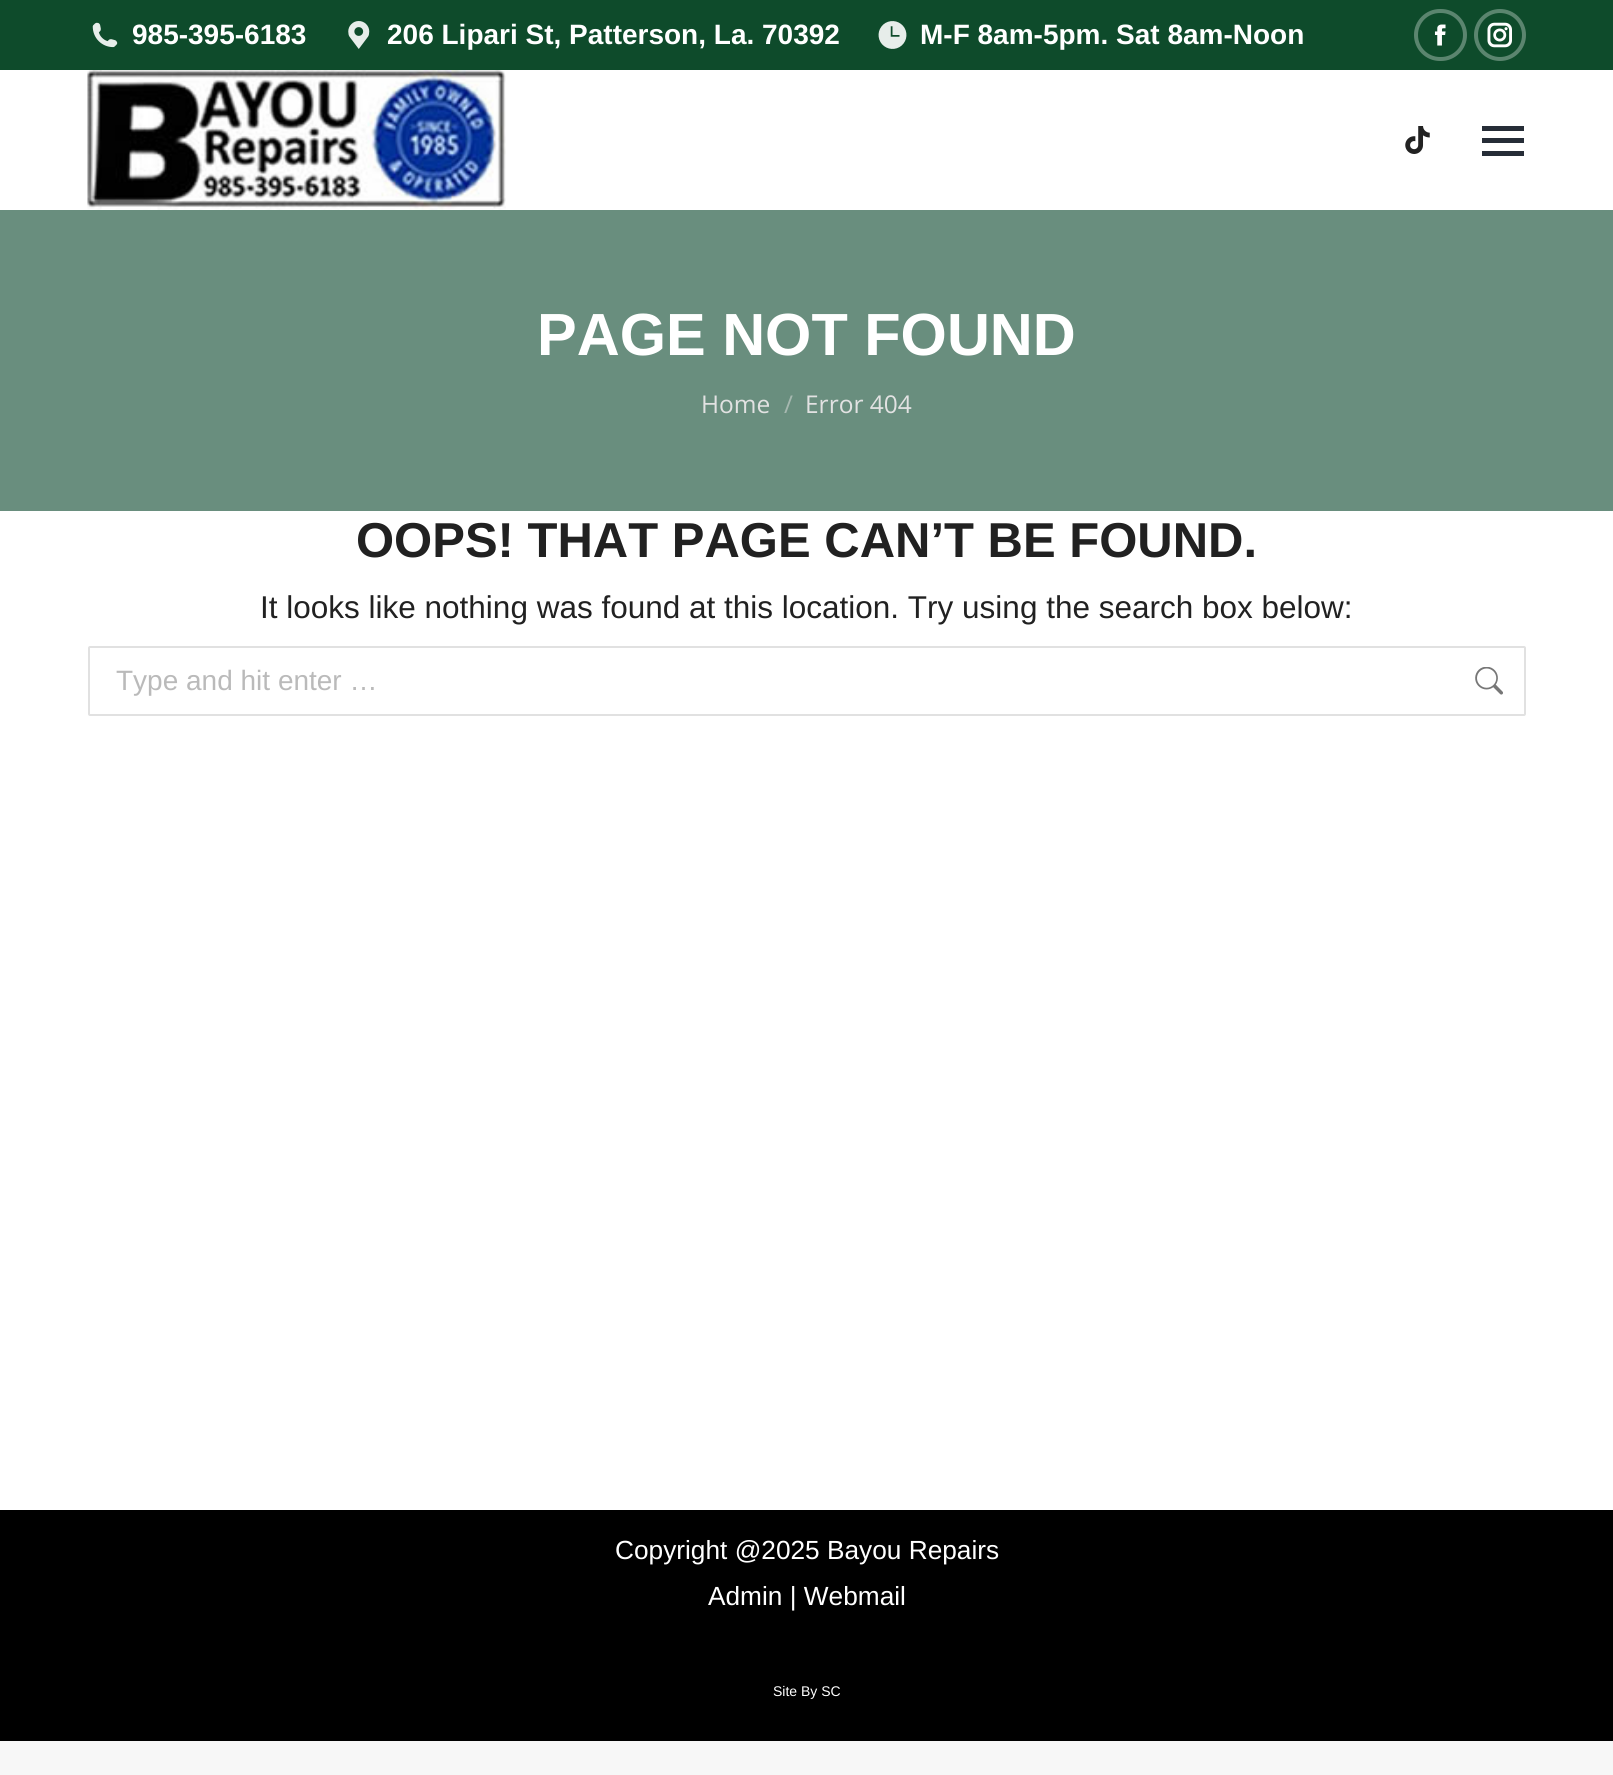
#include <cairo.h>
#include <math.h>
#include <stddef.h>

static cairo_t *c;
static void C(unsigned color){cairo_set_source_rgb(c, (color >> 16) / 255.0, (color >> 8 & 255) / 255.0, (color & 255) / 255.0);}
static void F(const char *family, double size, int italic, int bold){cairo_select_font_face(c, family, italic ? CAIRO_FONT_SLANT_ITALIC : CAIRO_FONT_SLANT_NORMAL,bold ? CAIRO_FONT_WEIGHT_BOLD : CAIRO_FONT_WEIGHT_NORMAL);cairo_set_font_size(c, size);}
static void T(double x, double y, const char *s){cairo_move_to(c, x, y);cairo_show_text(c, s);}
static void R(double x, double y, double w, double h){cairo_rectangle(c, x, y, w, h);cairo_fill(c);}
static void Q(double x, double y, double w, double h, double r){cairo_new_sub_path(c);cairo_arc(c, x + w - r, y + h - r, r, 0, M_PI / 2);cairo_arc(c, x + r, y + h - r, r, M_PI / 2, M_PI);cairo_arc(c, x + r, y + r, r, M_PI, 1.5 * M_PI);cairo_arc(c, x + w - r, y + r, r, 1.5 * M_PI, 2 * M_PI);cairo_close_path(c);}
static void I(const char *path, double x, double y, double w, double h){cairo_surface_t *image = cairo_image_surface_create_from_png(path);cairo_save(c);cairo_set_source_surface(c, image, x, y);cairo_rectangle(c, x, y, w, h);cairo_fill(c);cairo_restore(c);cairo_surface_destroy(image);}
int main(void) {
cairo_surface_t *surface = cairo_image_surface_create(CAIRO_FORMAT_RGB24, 1613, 1775);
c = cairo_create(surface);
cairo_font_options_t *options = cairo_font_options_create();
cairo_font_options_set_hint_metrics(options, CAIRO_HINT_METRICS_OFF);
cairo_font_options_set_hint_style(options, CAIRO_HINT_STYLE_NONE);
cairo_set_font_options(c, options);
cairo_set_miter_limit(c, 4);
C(0xf7f7f7);
cairo_paint(c);
C(0xffffff);
R(0,70,1613,1440);
C(0x0e4b2b);
R(0,0,1613,70);
I("1.png",92,22,26,26);
F("Liberation Sans",28,0,1);
C(0xffffff);
T(132,44,"985-395-6183");
I("2.png",348,21,22,28);
T(387,44,"206 Lipari St, Patterson, La. 70392");
I("3.png",878,21,29,28);
T(920,44,"M-F 8am-5pm. Sat 8am-Noon");
Q(1416,11,49,48,24);
C(0x5b856f);
cairo_set_line_width(c,4);
cairo_stroke(c);
I("4.png",1434,24,12,22);
cairo_arc(c,1500,35,24,0,2 * M_PI);
cairo_stroke(c);
I("5.png",1487,22,25,26);
I("6.png",87,70,419,140);
I("7.png",1405,126,25,28);
C(0x262d37);
R(1482,126,42,5);
R(1482,138,42,5);
R(1482,151,42,5);
C(0x698e7e);
R(0,210,1613,301);
F("Liberation Sans",59.5,0,1);
C(0xffffff);
T(537,355,"PAGE NOT FOUND");
F("Open Sans",24.5,0,0);
C(0xe2e2e2);
T(701,413,"Home");
C(0xa6b8b0);
T(784,413,"/");
C(0xe2e2e2);
T(805,413,"Error 404");
F("Liberation Sans",49,0,1);
C(0x212121);
T(356,557,"OOPS! THAT PAGE CAN’T BE FOUND.");
F("Liberation Sans",31.5,0,0);
T(260,618,"It looks like nothing was found at this location. Try using the search box below:");
Q(89,647,1436,68,1);
C(0xe1e1e1);
cairo_set_line_width(c,2);
cairo_stroke(c);
F("Liberation Sans",28,0,0);
C(0xbababa);
T(116,690,"Type and hit enter …");
I("8.png",1475,667,28,28);
C(0x000000);
R(0,1510,1613,231);
F("Liberation Sans",26.25,0,0);
C(0xffffff);
T(615,1559,"Copyright @2025 Bayou Repairs");
T(708,1605,"Admin | Webmail");
F("Liberation Sans",14,0,0);
T(773,1696,"Site By SC");
cairo_surface_write_to_png(surface, "o.png");
cairo_font_options_destroy(options);
cairo_destroy(c);
cairo_surface_destroy(surface);
return 0;
}
